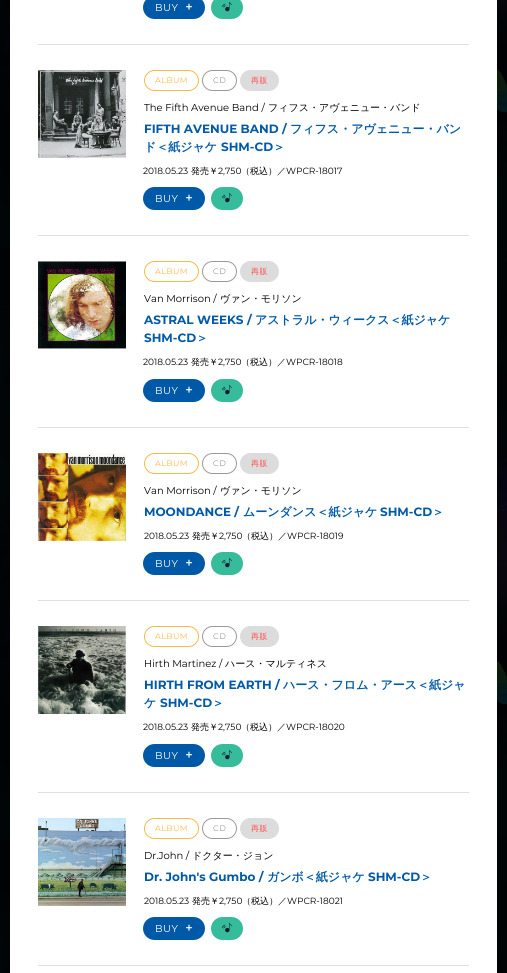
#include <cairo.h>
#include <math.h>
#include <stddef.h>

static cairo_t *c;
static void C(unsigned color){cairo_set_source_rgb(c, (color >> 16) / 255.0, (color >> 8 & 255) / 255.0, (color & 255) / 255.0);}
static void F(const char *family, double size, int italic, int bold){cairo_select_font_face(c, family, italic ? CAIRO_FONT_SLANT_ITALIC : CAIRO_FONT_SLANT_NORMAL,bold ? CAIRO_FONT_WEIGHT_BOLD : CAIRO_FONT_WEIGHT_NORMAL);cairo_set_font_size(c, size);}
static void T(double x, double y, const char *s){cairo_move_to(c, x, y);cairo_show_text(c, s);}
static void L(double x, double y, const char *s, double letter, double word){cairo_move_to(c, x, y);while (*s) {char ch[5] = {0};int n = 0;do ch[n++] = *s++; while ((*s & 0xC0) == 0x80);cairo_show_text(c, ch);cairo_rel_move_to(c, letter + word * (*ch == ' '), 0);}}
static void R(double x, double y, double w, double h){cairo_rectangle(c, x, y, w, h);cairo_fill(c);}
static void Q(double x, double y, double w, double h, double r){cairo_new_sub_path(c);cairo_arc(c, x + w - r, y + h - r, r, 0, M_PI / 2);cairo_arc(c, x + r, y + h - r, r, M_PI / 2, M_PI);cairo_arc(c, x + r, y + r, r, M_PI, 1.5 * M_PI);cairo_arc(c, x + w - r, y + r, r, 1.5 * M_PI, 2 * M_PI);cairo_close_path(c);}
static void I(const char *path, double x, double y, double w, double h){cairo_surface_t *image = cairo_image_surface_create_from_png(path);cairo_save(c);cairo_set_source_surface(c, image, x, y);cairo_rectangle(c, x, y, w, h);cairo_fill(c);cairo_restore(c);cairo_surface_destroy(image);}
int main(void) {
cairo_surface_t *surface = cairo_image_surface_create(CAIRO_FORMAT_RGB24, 507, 973);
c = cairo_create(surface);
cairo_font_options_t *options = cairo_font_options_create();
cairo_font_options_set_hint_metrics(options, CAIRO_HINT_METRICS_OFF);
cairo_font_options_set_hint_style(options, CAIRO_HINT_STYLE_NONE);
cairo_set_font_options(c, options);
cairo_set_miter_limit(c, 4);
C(0xffffff);
cairo_paint(c);
I("1.png",0,0,507,973);
C(0xffffff);
R(10,0,487,973);
C(0xe0e0e0);
R(38,44,431,1);
C(0x0059a7);
Q(143,-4,62,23,11.5);
cairo_fill(c);
F("Montserrat",10,0,0);
C(0xffffff);
L(155,11,"BUY",.5,0);
I("2.png",186,3,6,7);
C(0x37bc9b);
Q(211,-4,32,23,11.5);
cairo_fill(c);
I("3.png",221,2,12,10);
C(0xe0e0e0);
R(38,235,431,1);
I("4.png",38,70,88,88);
Q(144.5,70.5,54,20,10);
C(0xf6bb42);
cairo_set_line_width(c,1);
cairo_stroke(c);
F("Montserrat",8,0,0);
L(155,83,"ALBUM",.5,0);
Q(202.5,70.5,34,20,10);
C(0x999999);
cairo_stroke(c);
L(213,83,"CD",.5,0);
C(0xdcdcdc);
Q(240.5,70.5,38,20,10);
cairo_fill_preserve(c);
cairo_stroke(c);
F("WenQuanYi Zen Hei Medium",8,0,0);
C(0xff4e4e);
L(251,83,"再販",.5,0);
F("Montserrat",10,0,0);
C(0x000000);
T(144,111,"The Fifth Avenue Band /");
F("WenQuanYi Zen Hei Medium",10,0,0);
T(268,111,"フィフス・アヴェニュー・バンド");
F("Montserrat",12,0,1);
C(0x0059a7);
T(144,133,"FIFTH AVENUE BAND /");
F("WenQuanYi Zen Hei",12,0,1);
T(290,133,"フィフス・アヴェニュー・バン");
T(144,151,"ド＜紙ジャケ");
F("Montserrat",12,0,1);
T(221,151,"SHM-CD");
F("WenQuanYi Zen Hei",12,0,1);
T(273,151,"＞");
F("Montserrat",9,0,0);
C(0x000000);
T(143,174,"2018.05.23");
F("WenQuanYi Zen Hei Medium",9,0,0);
T(191,174,"発売￥");
F("Montserrat",9,0,0);
T(218,174,"2,750");
F("WenQuanYi Zen Hei Medium",9,0,0);
T(241,174,"（税込）／");
F("Montserrat",9,0,0);
T(286,174,"WPCR-18017");
C(0x0059a7);
Q(143,187,62,23,11.5);
cairo_fill(c);
F("Montserrat",10,0,0);
C(0xffffff);
L(155,202,"BUY",.5,0);
I("2.png",186,194,6,7);
C(0x37bc9b);
Q(211,187,32,23,11.5);
cairo_fill(c);
I("3.png",221,193,12,10);
C(0xe0e0e0);
R(38,427,431,1);
I("5.png",38,261,88,88);
Q(144.5,261.5,54,20,10);
C(0xf6bb42);
cairo_stroke(c);
F("Montserrat",8,0,0);
L(155,274,"ALBUM",.5,0);
Q(202.5,261.5,34,20,10);
C(0x999999);
cairo_stroke(c);
L(213,274,"CD",.5,0);
C(0xdcdcdc);
Q(240.5,261.5,38,20,10);
cairo_fill_preserve(c);
cairo_stroke(c);
F("WenQuanYi Zen Hei Medium",8,0,0);
C(0xff4e4e);
L(251,274,"再販",.5,0);
F("Montserrat",10,0,0);
C(0x000000);
T(144,302,"Van Morrison /");
F("WenQuanYi Zen Hei Medium",10,0,0);
T(220,302,"ヴァン・モリソン");
F("Montserrat",12,0,1);
C(0x0059a7);
T(144,324,"ASTRAL WEEKS /");
F("WenQuanYi Zen Hei",12,0,1);
T(255,324,"アストラル・ウィークス＜紙ジャケ");
F("Montserrat",12,0,1);
T(144,342,"SHM-CD");
F("WenQuanYi Zen Hei",12,0,1);
T(196,342,"＞");
F("Montserrat",9,0,0);
C(0x000000);
T(143,365,"2018.05.23");
F("WenQuanYi Zen Hei Medium",9,0,0);
T(191,365,"発売￥");
F("Montserrat",9,0,0);
T(218,365,"2,750");
F("WenQuanYi Zen Hei Medium",9,0,0);
T(241,365,"（税込）／");
F("Montserrat",9,0,0);
T(286,365,"WPCR-18018");
C(0x0059a7);
Q(143,379,62,23,11.5);
cairo_fill(c);
F("Montserrat",10,0,0);
C(0xffffff);
L(155,394,"BUY",.5,0);
I("2.png",186,386,6,7);
C(0x37bc9b);
Q(211,379,32,23,11.5);
cairo_fill(c);
I("3.png",221,385,12,10);
C(0xe0e0e0);
R(38,600,431,1);
I("6.png",38,453,88,88);
Q(144.5,453.5,54,20,10);
C(0xf6bb42);
cairo_stroke(c);
F("Montserrat",8,0,0);
L(155,466,"ALBUM",.5,0);
Q(202.5,453.5,34,20,10);
C(0x999999);
cairo_stroke(c);
L(213,466,"CD",.5,0);
C(0xdcdcdc);
Q(240.5,453.5,38,20,10);
cairo_fill_preserve(c);
cairo_stroke(c);
F("WenQuanYi Zen Hei Medium",8,0,0);
C(0xff4e4e);
L(251,466,"再販",.5,0);
F("Montserrat",10,0,0);
C(0x000000);
T(144,494,"Van Morrison /");
F("WenQuanYi Zen Hei Medium",10,0,0);
T(220,494,"ヴァン・モリソン");
F("Montserrat",12,0,1);
C(0x0059a7);
T(144,516,"MOONDANCE /");
F("WenQuanYi Zen Hei",12,0,1);
T(243,516,"ムーンダンス＜紙ジャケ");
F("Montserrat",12,0,1);
T(380,516,"SHM-CD");
F("WenQuanYi Zen Hei",12,0,1);
T(432,516,"＞");
F("Montserrat",9,0,0);
C(0x000000);
T(144,539,"2018.05.23");
F("WenQuanYi Zen Hei Medium",9,0,0);
T(192,539,"発売￥");
F("Montserrat",9,0,0);
T(219,539,"2,750");
F("WenQuanYi Zen Hei Medium",9,0,0);
T(242,539,"（税込）／");
F("Montserrat",9,0,0);
T(287,539,"WPCR-18019");
C(0x0059a7);
Q(143,552,62,23,11.5);
cairo_fill(c);
F("Montserrat",10,0,0);
C(0xffffff);
L(155,567,"BUY",.5,0);
I("2.png",186,559,6,7);
C(0x37bc9b);
Q(211,552,32,23,11.5);
cairo_fill(c);
I("3.png",221,558,12,10);
C(0xe0e0e0);
R(38,792,431,1);
I("7.png",38,626,88,88);
Q(144.5,626.5,54,20,10);
C(0xf6bb42);
cairo_stroke(c);
F("Montserrat",8,0,0);
L(155,639,"ALBUM",.5,0);
Q(202.5,626.5,34,20,10);
C(0x999999);
cairo_stroke(c);
L(213,639,"CD",.5,0);
C(0xdcdcdc);
Q(240.5,626.5,38,20,10);
cairo_fill_preserve(c);
cairo_stroke(c);
F("WenQuanYi Zen Hei Medium",8,0,0);
C(0xff4e4e);
L(251,639,"再販",.5,0);
F("Montserrat",10,0,0);
C(0x000000);
T(144,667,"Hirth Martinez /");
F("WenQuanYi Zen Hei Medium",10,0,0);
T(225,667,"ハース・マルティネス");
F("Montserrat",12,0,1);
C(0x0059a7);
T(144,689,"HIRTH FROM EARTH /");
F("WenQuanYi Zen Hei",12,0,1);
T(283,689,"ハース・フロム・アース＜紙ジャ");
T(144,707,"ケ");
F("Montserrat",12,0,1);
T(160,707,"SHM-CD");
F("WenQuanYi Zen Hei",12,0,1);
T(212,707,"＞");
F("Montserrat",9,0,0);
C(0x000000);
T(143,730,"2018.05.23");
F("WenQuanYi Zen Hei Medium",9,0,0);
T(191,730,"発売￥");
F("Montserrat",9,0,0);
T(218,730,"2,750");
F("WenQuanYi Zen Hei Medium",9,0,0);
T(241,730,"（税込）／");
F("Montserrat",9,0,0);
T(286,730,"WPCR-18020");
C(0x0059a7);
Q(143,744,62,23,11.5);
cairo_fill(c);
F("Montserrat",10,0,0);
C(0xffffff);
L(155,759,"BUY",.5,0);
I("2.png",186,751,6,7);
C(0x37bc9b);
Q(211,744,32,23,11.5);
cairo_fill(c);
I("3.png",221,750,12,10);
C(0xe0e0e0);
R(38,965,431,1);
I("8.png",38,818,88,88);
Q(144.5,818.5,54,20,10);
C(0xf6bb42);
cairo_stroke(c);
F("Montserrat",8,0,0);
L(155,831,"ALBUM",.5,0);
Q(202.5,818.5,34,20,10);
C(0x999999);
cairo_stroke(c);
L(213,831,"CD",.5,0);
C(0xdcdcdc);
Q(240.5,818.5,38,20,10);
cairo_fill_preserve(c);
cairo_stroke(c);
F("WenQuanYi Zen Hei Medium",8,0,0);
C(0xff4e4e);
L(251,831,"再販",.5,0);
F("Montserrat",10,0,0);
C(0x000000);
T(144,859,"Dr.John /");
F("WenQuanYi Zen Hei Medium",10,0,0);
T(192,859,"ドクター・ジョン");
F("Montserrat",12,0,1);
C(0x0059a7);
T(144,881,"Dr. John's Gumbo /");
F("WenQuanYi Zen Hei",12,0,1);
T(267,881,"ガンボ＜紙ジャケ");
F("Montserrat",12,0,1);
T(368,881,"SHM-CD");
F("WenQuanYi Zen Hei",12,0,1);
T(420,881,"＞");
F("Montserrat",9,0,0);
C(0x000000);
T(144,904,"2018.05.23");
F("WenQuanYi Zen Hei Medium",9,0,0);
T(192,904,"発売￥");
F("Montserrat",9,0,0);
T(219,904,"2,750");
F("WenQuanYi Zen Hei Medium",9,0,0);
T(242,904,"（税込）／");
F("Montserrat",9,0,0);
T(287,904,"WPCR-18021");
C(0x0059a7);
Q(143,917,62,23,11.5);
cairo_fill(c);
F("Montserrat",10,0,0);
C(0xffffff);
L(155,932,"BUY",.5,0);
I("2.png",186,924,6,7);
C(0x37bc9b);
Q(211,917,32,23,11.5);
cairo_fill(c);
I("3.png",221,923,12,10);
cairo_surface_write_to_png(surface, "o.png");
cairo_font_options_destroy(options);
cairo_destroy(c);
cairo_surface_destroy(surface);
return 0;
}
